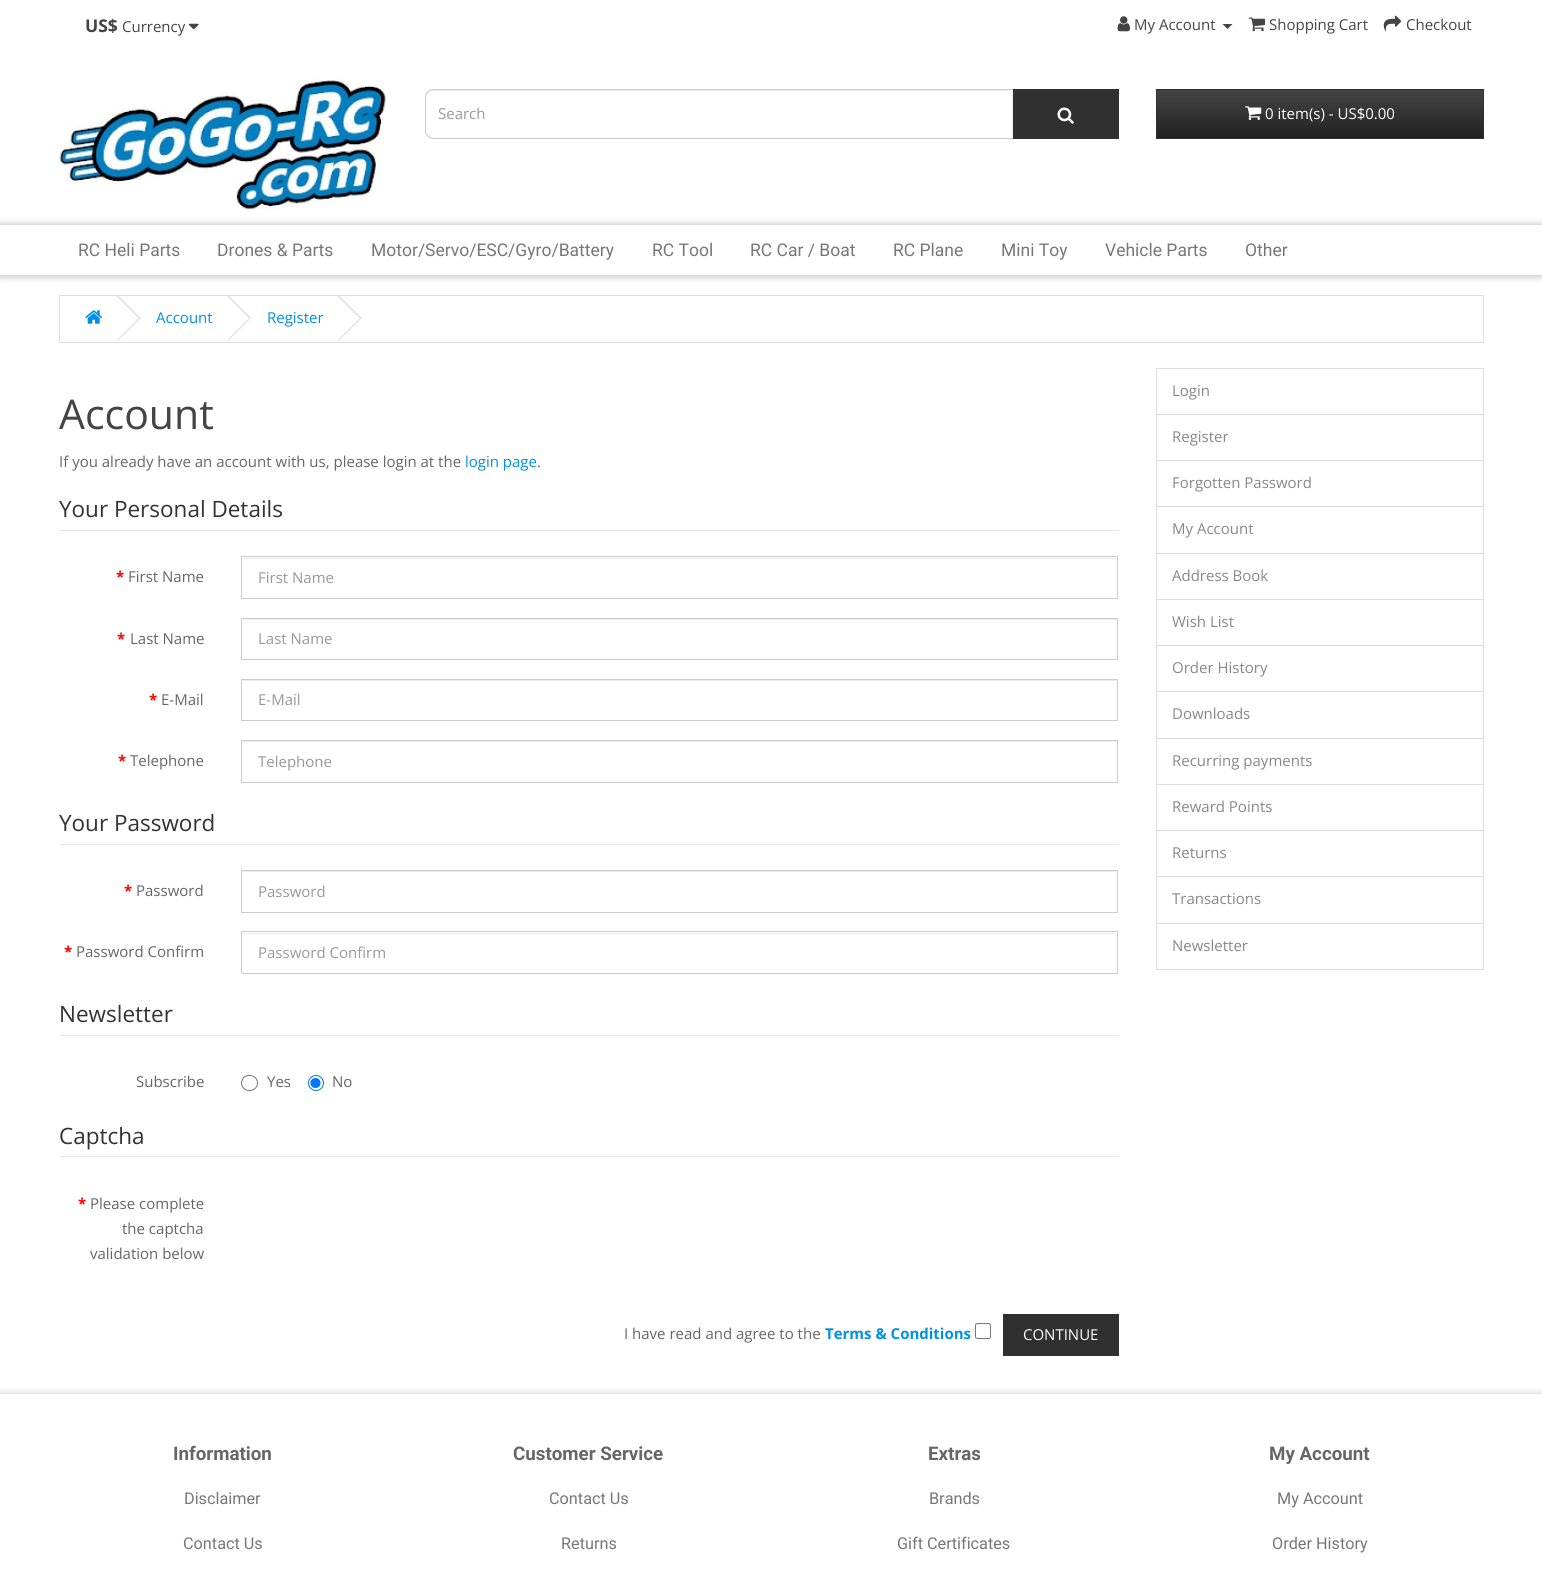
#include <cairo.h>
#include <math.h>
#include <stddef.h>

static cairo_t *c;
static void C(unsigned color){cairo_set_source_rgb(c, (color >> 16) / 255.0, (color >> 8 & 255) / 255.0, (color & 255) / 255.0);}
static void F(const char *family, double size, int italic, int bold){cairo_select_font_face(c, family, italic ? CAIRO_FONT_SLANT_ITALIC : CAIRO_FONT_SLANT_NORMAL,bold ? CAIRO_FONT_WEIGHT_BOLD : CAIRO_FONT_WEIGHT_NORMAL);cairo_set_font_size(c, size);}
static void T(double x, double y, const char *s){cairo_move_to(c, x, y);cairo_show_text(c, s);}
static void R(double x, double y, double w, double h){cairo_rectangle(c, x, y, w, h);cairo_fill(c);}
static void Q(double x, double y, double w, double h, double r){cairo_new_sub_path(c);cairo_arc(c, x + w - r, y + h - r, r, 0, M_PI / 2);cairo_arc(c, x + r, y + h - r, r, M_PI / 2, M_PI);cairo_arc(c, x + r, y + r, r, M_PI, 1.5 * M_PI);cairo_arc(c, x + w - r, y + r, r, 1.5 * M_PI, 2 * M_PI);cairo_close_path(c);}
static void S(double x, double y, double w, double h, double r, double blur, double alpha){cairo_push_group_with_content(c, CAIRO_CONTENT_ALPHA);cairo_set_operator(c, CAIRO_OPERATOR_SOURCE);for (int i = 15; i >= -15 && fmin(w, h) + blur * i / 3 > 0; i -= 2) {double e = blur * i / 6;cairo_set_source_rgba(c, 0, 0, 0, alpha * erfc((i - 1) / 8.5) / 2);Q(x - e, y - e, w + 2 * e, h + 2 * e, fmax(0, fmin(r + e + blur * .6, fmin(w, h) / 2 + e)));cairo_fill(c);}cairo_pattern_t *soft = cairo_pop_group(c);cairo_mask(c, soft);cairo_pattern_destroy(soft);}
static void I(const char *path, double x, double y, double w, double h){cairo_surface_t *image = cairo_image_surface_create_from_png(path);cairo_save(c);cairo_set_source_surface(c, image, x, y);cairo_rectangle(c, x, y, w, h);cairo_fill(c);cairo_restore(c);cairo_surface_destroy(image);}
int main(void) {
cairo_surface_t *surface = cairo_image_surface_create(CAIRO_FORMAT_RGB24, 1542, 1572);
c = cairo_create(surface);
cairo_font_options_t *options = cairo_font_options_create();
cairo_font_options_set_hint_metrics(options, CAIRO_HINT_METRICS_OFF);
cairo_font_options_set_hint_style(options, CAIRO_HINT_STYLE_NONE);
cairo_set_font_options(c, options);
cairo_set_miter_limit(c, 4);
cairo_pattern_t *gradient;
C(0xffffff);
cairo_paint(c);
F("Open Sans",17.5,0,1);
C(0x444444);
T(85,32,"US$");
F("Open Sans",15,0,0);
T(122,32,"Currency");
I("1.png",188,23,11,7);
I("2.png",1117,16,13,16);
T(1134,30,"My Account");
cairo_new_path(c);
cairo_move_to(c,1222.5,24);
cairo_line_to(c,1232.5,24);
cairo_line_to(c,1227.5,29);
cairo_close_path(c);
cairo_fill(c);
I("3.png",1248,17,17,15);
T(1269,30,"Shopping Cart");
I("4.png",1383,15,19,17);
T(1406,30,"Checkout");
I("5.png",59,79,327,131);
C(0xececec);
cairo_new_path(c);
cairo_move_to(c,432,91);
cairo_line_to(c,1012,91);
cairo_line_to(c,1012,138);
cairo_line_to(c,1013,138);
cairo_line_to(c,1013,90);
cairo_line_to(c,432,90);
cairo_curve_to(c,427,90,426,94,426,98);
cairo_curve_to(c,426,94,429,91,432,91);
cairo_close_path(c);
cairo_fill(c);
cairo_new_path(c);
cairo_move_to(c,433,89.5);
cairo_line_to(c,1013.5,89.5);
cairo_line_to(c,1013.5,138.5);
cairo_line_to(c,433,138.5);
cairo_curve_to(c,429,138.5,425.5,135,425.5,131);
cairo_line_to(c,425.5,97);
cairo_curve_to(c,425.5,93,429,89.5,433,89.5);
cairo_close_path(c);
C(0xcccccc);
cairo_set_line_width(c,1);
cairo_stroke(c);
C(0x999999);
T(438,119,"Search");
C(0x303030);
R(1013,89,106,50);
I("6.png",1057,107,17,17);
gradient = cairo_pattern_create_linear(1320,90,1320,138);
cairo_pattern_add_color_stop_rgba(gradient,0,0.267,0.267,0.267,1);
cairo_pattern_add_color_stop_rgba(gradient,1,0.133,0.133,0.133,1);
cairo_set_source(c,gradient);
cairo_pattern_destroy(gradient);
R(1157,90,326,48);
cairo_rectangle(c,1156.5,89.5,327,49);
C(0x303030);
cairo_stroke(c);
I("7.png",1245,106,17,14);
C(0xffffff);
T(1265,119,"0 item(s) - US$0.00");
cairo_save(c);
cairo_set_fill_rule(c,CAIRO_FILL_RULE_EVEN_ODD);
cairo_new_path(c);
cairo_move_to(c,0,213);
cairo_line_to(c,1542,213);
cairo_line_to(c,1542,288);
cairo_line_to(c,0,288);
cairo_close_path(c);
cairo_move_to(c,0,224);
cairo_line_to(c,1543,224);
cairo_line_to(c,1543,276);
cairo_line_to(c,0,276);
cairo_close_path(c);
cairo_clip(c);
C(0xd1d1d1);
S(-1,223,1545,55,0,3,1);
cairo_restore(c);
C(0xdddddd);
R(0,224,1542,1);
R(0,275,1542,1);
F("Roboto",17.5,0,0);
C(0x777777);
T(78,256,"RC Heli Parts");
T(217,256,"Drones & Parts");
T(371,256,"Motor/Servo/ESC/Gyro/Battery");
T(652,256,"RC Tool");
T(750,256,"RC Car / Boat");
T(893,256,"RC Plane");
T(1001,256,"Mini Toy");
T(1105,256,"Vehicle Parts");
T(1245,256,"Other");
cairo_rectangle(c,59.5,295.5,1424,47);
C(0xdddddd);
cairo_stroke(c);
I("8.png",85,310,18,14);
cairo_new_path(c);
cairo_move_to(c,116.5,296);
cairo_line_to(c,117.5,295);
cairo_line_to(c,140.5,318);
cairo_line_to(c,139.5,319);
cairo_close_path(c);
cairo_fill(c);
cairo_new_path(c);
cairo_move_to(c,116.5,340.5);
cairo_line_to(c,139.5,317.5);
cairo_line_to(c,140.5,318);
cairo_line_to(c,117.5,341);
cairo_close_path(c);
cairo_fill(c);
F("Open Sans",15,0,0);
C(0x0090e3);
T(156,323,"Account");
C(0xdddddd);
cairo_new_path(c);
cairo_move_to(c,227,296);
cairo_line_to(c,228,295);
cairo_line_to(c,251,318);
cairo_line_to(c,250,319);
cairo_close_path(c);
cairo_fill(c);
cairo_new_path(c);
cairo_move_to(c,227,340.5);
cairo_line_to(c,250,317.5);
cairo_line_to(c,251,318);
cairo_line_to(c,228,341);
cairo_close_path(c);
cairo_fill(c);
C(0x0090e3);
T(267,323,"Register");
C(0xdddddd);
cairo_new_path(c);
cairo_move_to(c,337.5,296);
cairo_line_to(c,338.5,295);
cairo_line_to(c,361.5,318);
cairo_line_to(c,360.5,319);
cairo_close_path(c);
cairo_fill(c);
cairo_new_path(c);
cairo_move_to(c,337.5,340.5);
cairo_line_to(c,360.5,317.5);
cairo_line_to(c,361.5,318);
cairo_line_to(c,338.5,341);
cairo_close_path(c);
cairo_fill(c);
F("Open Sans",41,0,0);
C(0x444444);
T(59,429,"Account");
F("Open Sans",15,0,0);
C(0x666666);
T(59,467,"If you already have an account with us, please login at the");
C(0x0090e3);
T(465,467,"login page");
C(0x666666);
T(537,467,".");
C(0xe5e5e5);
R(59,530,1060,1);
F("Open Sans",22.5,0,0);
C(0x333333);
T(59,517,"Your Personal Details");
F("Open Sans",15,0,1);
C(0xff0000);
T(116,582,"*");
F("Open Sans",15,0,0);
C(0x666666);
T(128,582,"First Name");
C(0xececec);
R(243,558,873,1);
cairo_rectangle(c,241.5,556.5,876,42);
C(0xcccccc);
cairo_stroke(c);
C(0x999999);
T(258,583,"First Name");
F("Open Sans",15,0,1);
C(0xff0000);
T(117,644,"*");
F("Open Sans",15,0,0);
C(0x666666);
T(130,644,"Last Name");
C(0xececec);
R(243,619,873,1);
cairo_rectangle(c,241.5,618.5,876,41);
C(0xcccccc);
cairo_stroke(c);
C(0x999999);
T(258,644,"Last Name");
F("Open Sans",15,0,1);
C(0xff0000);
T(149,705,"*");
F("Open Sans",15,0,0);
C(0x666666);
T(161,705,"E-Mail");
C(0xececec);
R(243,680,873,1);
cairo_rectangle(c,241.5,679.5,876,41);
C(0xcccccc);
cairo_stroke(c);
C(0x999999);
T(258,705,"E-Mail");
F("Open Sans",15,0,1);
C(0xff0000);
T(118,766,"*");
F("Open Sans",15,0,0);
C(0x666666);
T(130,766,"Telephone");
C(0xececec);
R(243,741,873,1);
cairo_rectangle(c,241.5,740.5,876,42);
C(0xcccccc);
cairo_stroke(c);
C(0x999999);
T(258,767,"Telephone");
C(0xe5e5e5);
R(59,844,1060,1);
F("Open Sans",22.5,0,0);
C(0x333333);
T(59,831,"Your Password");
F("Open Sans",15,0,1);
C(0xff0000);
T(124,896,"*");
F("Open Sans",15,0,0);
C(0x666666);
T(136,896,"Password");
C(0xececec);
R(243,871,873,1);
cairo_rectangle(c,241.5,870.5,876,42);
C(0xcccccc);
cairo_stroke(c);
C(0x999999);
T(258,897,"Password");
F("Open Sans",15,0,1);
C(0xff0000);
T(64,957,"*");
F("Open Sans",15,0,0);
C(0x666666);
T(76,957,"Password Confirm");
C(0xececec);
R(243,933,873,1);
cairo_rectangle(c,241.5,931.5,876,42);
C(0xcccccc);
cairo_stroke(c);
C(0x999999);
T(258,958,"Password Confirm");
C(0xe5e5e5);
R(59,1035,1060,1);
F("Open Sans",22.5,0,0);
C(0x333333);
T(59,1022,"Newsletter");
F("Open Sans",15,0,0);
C(0x666666);
T(136,1087,"Subscribe");
Q(241.5,1075.5,16,15,7.5);
C(0x767676);
cairo_stroke(c);
C(0x666666);
T(267,1087,"Yes");
cairo_new_path(c);
cairo_arc(c,316,1083,7.5,0,2 * M_PI);
C(0x0075ff);
cairo_stroke(c);
cairo_arc(c,315.5,1083,5,0,2 * M_PI);
cairo_fill(c);
C(0x666666);
T(332,1087,"No");
C(0xe5e5e5);
R(59,1156,1060,1);
F("Open Sans",22.5,0,0);
C(0x333333);
T(59,1144,"Captcha");
F("Open Sans",15,0,1);
C(0xff0000);
T(78,1209,"*");
F("Open Sans",15,0,0);
C(0x666666);
T(90,1209,"Please complete");
T(122,1234,"the captcha");
T(90,1259,"validation below");
T(624,1339,"I have read and agree to the");
F("Open Sans",15,0,1);
C(0x0090e3);
T(825,1339,"Terms & Conditions");
Q(975.5,1323.5,15,15,2);
C(0x767676);
cairo_stroke(c);
C(0x303030);
R(1003,1314,116,42);
F("Open Sans",15,0,0);
C(0xffffff);
T(1023,1340,"CONTINUE");
cairo_rectangle(c,1156.5,368.5,327,46);
C(0xdddddd);
cairo_stroke(c);
C(0x888888);
T(1172,396,"Login");
cairo_rectangle(c,1156.5,414.5,327,46);
C(0xdddddd);
cairo_stroke(c);
C(0x888888);
T(1172,442,"Register");
cairo_rectangle(c,1156.5,460.5,327,47);
C(0xdddddd);
cairo_stroke(c);
C(0x888888);
T(1172,488,"Forgotten Password");
C(0xffffff);
R(1157,507,326,1);
cairo_rectangle(c,1156.5,506.5,327,47);
C(0xdddddd);
cairo_stroke(c);
C(0x888888);
T(1172,534,"My Account");
cairo_rectangle(c,1156.5,553.5,327,46);
C(0xdddddd);
cairo_stroke(c);
C(0x888888);
T(1172,581,"Address Book");
cairo_rectangle(c,1156.5,599.5,327,46);
C(0xdddddd);
cairo_stroke(c);
C(0x888888);
T(1172,627,"Wish List");
cairo_rectangle(c,1156.5,645.5,327,47);
C(0xdddddd);
cairo_stroke(c);
C(0x888888);
T(1172,673,"Order History");
C(0xffffff);
R(1157,692,326,1);
cairo_rectangle(c,1156.5,691.5,327,47);
C(0xdddddd);
cairo_stroke(c);
C(0x888888);
T(1172,719,"Downloads");
cairo_rectangle(c,1156.5,738.5,327,46);
C(0xdddddd);
cairo_stroke(c);
C(0x888888);
T(1172,766,"Recurring payments");
cairo_rectangle(c,1156.5,784.5,327,46);
C(0xdddddd);
cairo_stroke(c);
C(0x888888);
T(1172,812,"Reward Points");
cairo_rectangle(c,1156.5,830.5,327,47);
C(0xdddddd);
cairo_stroke(c);
C(0x888888);
T(1172,858,"Returns");
C(0xffffff);
R(1157,877,326,1);
cairo_rectangle(c,1156.5,876.5,327,47);
C(0xdddddd);
cairo_stroke(c);
C(0x888888);
T(1172,904,"Transactions");
cairo_rectangle(c,1156.5,923.5,327,46);
C(0xdddddd);
cairo_stroke(c);
C(0x888888);
T(1172,951,"Newsletter");
cairo_save(c);
cairo_rectangle(c,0,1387,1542,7);
cairo_clip(c);
C(0xd1d1d1);
S(-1,1393,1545,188,0,3,1);
cairo_restore(c);
F("Roboto",18.75,0,1);
C(0x666666);
T(173,1460,"Information");
F("Roboto",16.25,0,0);
C(0x777777);
T(184,1504,"Disclaimer");
T(183,1549,"Contact Us");
F("Roboto",18.75,0,1);
C(0x666666);
T(513,1460,"Customer Service");
F("Roboto",16.25,0,0);
C(0x777777);
T(549,1504,"Contact Us");
T(561,1549,"Returns");
F("Roboto",18.75,0,1);
C(0x666666);
T(928,1460,"Extras");
F("Roboto",16.25,0,0);
C(0x777777);
T(929,1504,"Brands");
T(897,1549,"Gift Certificates");
F("Roboto",18.75,0,1);
C(0x666666);
T(1269,1460,"My Account");
F("Roboto",16.25,0,0);
C(0x777777);
T(1277,1504,"My Account");
T(1272,1549,"Order History");
cairo_surface_write_to_png(surface, "o.png");
cairo_font_options_destroy(options);
cairo_destroy(c);
cairo_surface_destroy(surface);
return 0;
}
